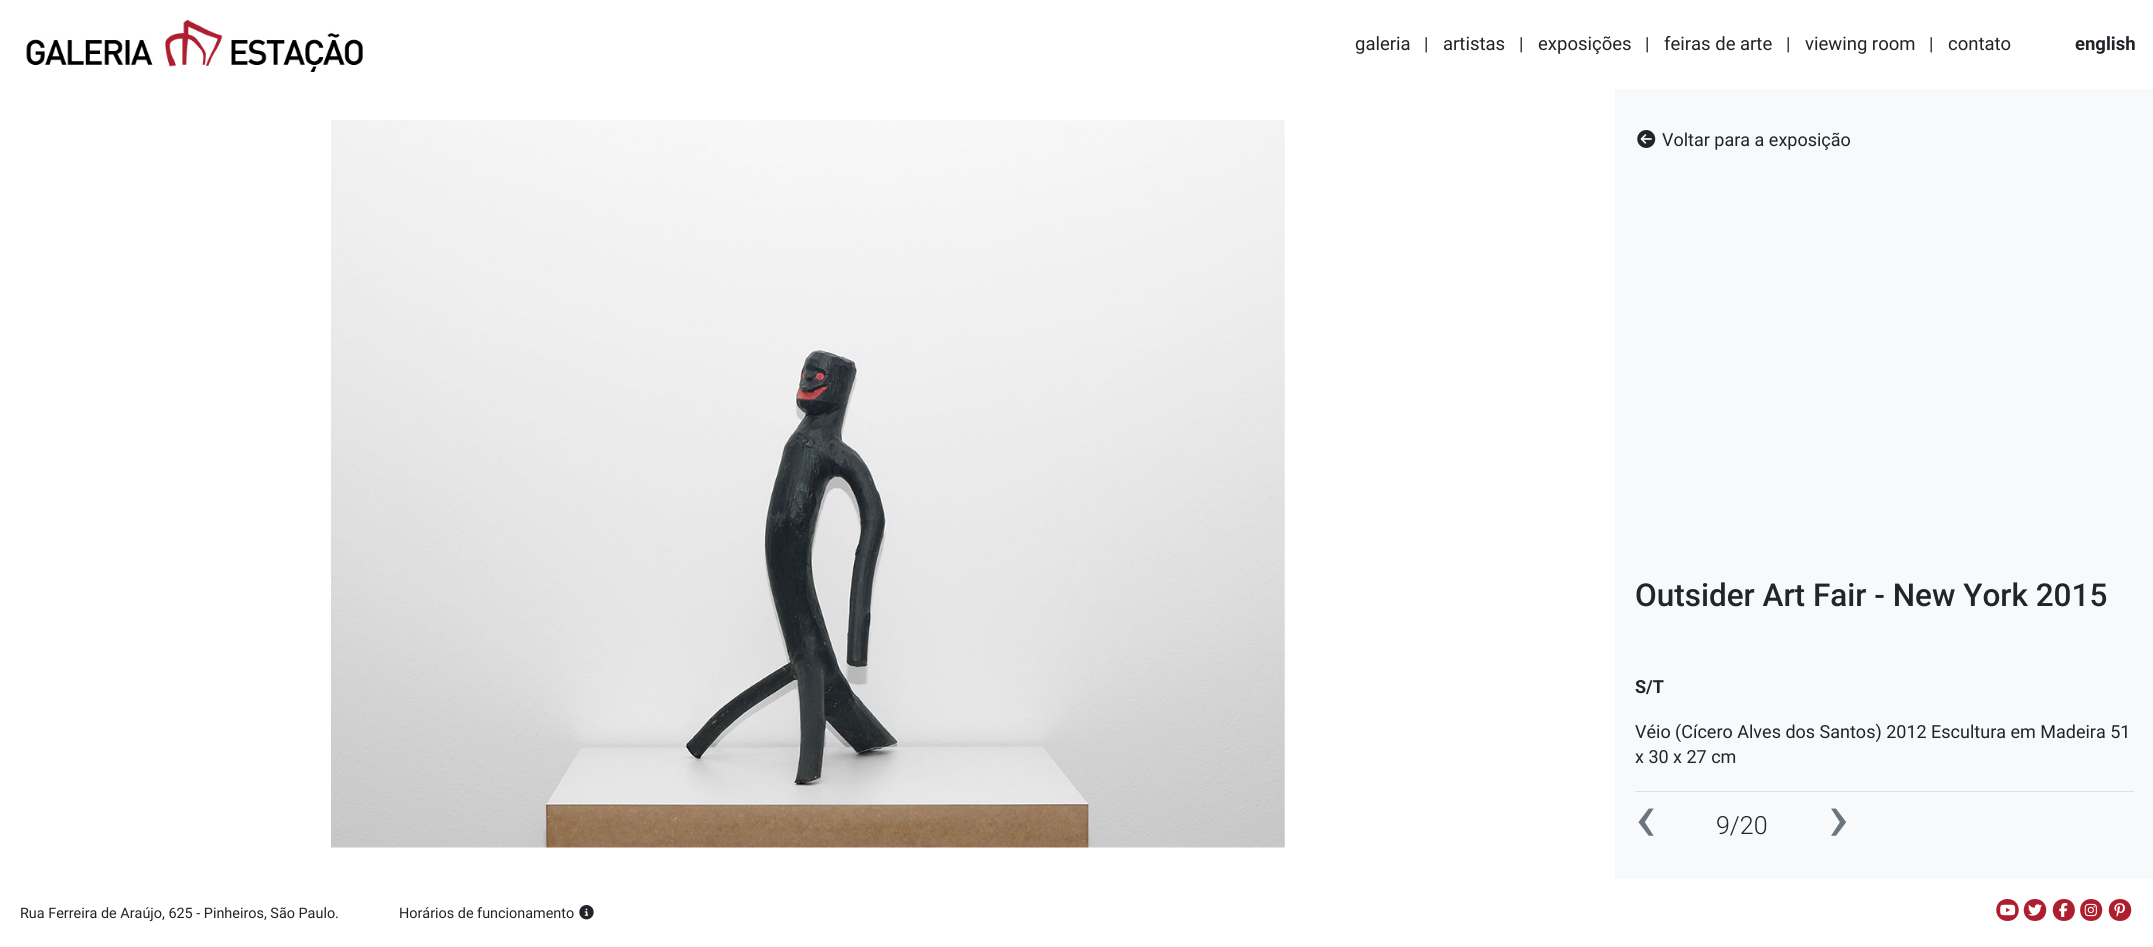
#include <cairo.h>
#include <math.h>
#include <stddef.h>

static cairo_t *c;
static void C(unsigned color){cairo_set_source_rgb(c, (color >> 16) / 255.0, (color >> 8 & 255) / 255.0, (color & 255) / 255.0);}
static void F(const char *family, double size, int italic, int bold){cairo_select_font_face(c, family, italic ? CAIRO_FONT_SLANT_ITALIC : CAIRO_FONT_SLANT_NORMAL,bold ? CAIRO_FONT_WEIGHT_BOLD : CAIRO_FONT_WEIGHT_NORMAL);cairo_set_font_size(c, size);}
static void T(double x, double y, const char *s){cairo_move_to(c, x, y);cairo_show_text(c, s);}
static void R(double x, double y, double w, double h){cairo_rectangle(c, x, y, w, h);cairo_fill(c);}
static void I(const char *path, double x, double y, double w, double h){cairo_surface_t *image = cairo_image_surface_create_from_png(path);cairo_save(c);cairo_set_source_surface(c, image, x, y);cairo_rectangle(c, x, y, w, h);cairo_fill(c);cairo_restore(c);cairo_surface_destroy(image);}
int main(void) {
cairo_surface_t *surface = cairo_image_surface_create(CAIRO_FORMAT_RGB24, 2153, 947);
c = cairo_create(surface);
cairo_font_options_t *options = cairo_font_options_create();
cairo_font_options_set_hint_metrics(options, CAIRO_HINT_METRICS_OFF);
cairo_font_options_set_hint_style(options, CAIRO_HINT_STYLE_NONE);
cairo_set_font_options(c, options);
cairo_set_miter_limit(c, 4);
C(0xffffff);
cairo_paint(c);
I("1.png",26,20,337,52);
F("Roboto",18.5,0,0);
C(0x212529);
T(1355,50,"galeria");
F("Roboto",18,0,0);
T(1424,50,"|");
F("Roboto",18.5,0,0);
T(1443,50,"artistas");
F("Roboto",18,0,0);
T(1519,50,"|");
F("Roboto",18.5,0,0);
T(1538,50,"exposições");
F("Roboto",18,0,0);
T(1645,50,"|");
F("Roboto",18.5,0,0);
T(1664,50,"feiras de arte");
F("Roboto",18,0,0);
T(1786,50,"|");
F("Roboto",18.5,0,0);
T(1805,50,"viewing room");
F("Roboto",18,0,0);
T(1929,50,"|");
F("Roboto",18.5,0,0);
T(1948,50,"contato");
F("Roboto",18.5,0,1);
T(2075,50,"english");
C(0xf8f9fa);
R(1615,89,538,790);
I("2.png",331,120,954,728);
I("3.png",1637,130,19,18);
F("Roboto",18,0,0);
C(0x212529);
T(1662,146,"Voltar para a exposição");
F("Roboto Medium",31.5,0,0);
T(1635,606,"Outsider Art Fair - New York 2015");
F("Roboto",18,0,1);
T(1635,693,"S/T");
F("Roboto",18,0,0);
T(1635,738,"Véio (Cícero Alves dos Santos) 2012 Escultura em Madeira 51");
T(1635,763,"x 30 x 27 cm");
C(0xdee2e6);
R(1635,791,499,1);
F("Roboto",70,0,0);
C(0x6c757d);
T(1635,841,"‹");
F("Roboto Light",25,0,0);
C(0x212529);
T(1716,834,"9/20");
F("Roboto",70,0,0);
C(0x6c757d);
T(1828,841,"›");
F("Roboto",14.4,0,0);
C(0x212529);
T(20,918,"Rua Ferreira de Araújo, 625 - Pinheiros, São Paulo.");
T(399,918,"Horários de funcionamento");
I("4.png",579,905,15,15);
C(0xae1e2f);
cairo_new_path(c);
cairo_move_to(c,2007.5,921);
cairo_curve_to(c,2022.5,921,2022.5,899,2007.5,899);
cairo_curve_to(c,1992.5,899,1992.5,921,2007.5,921);
cairo_close_path(c);
cairo_fill(c);
I("5.png",2000,904,16,12);
cairo_new_path(c);
cairo_move_to(c,2035,921);
cairo_curve_to(c,2050,921,2050,899,2035,899);
cairo_curve_to(c,2020,899,2020,921,2035,921);
cairo_close_path(c);
cairo_fill(c);
I("6.png",2028,904,14,12);
cairo_new_path(c);
cairo_move_to(c,2064,921);
cairo_curve_to(c,2078.5,921,2078.5,899,2064,899);
cairo_curve_to(c,2049,899,2049,921,2064,921);
cairo_close_path(c);
cairo_fill(c);
I("7.png",2059,903,9,14);
cairo_new_path(c);
cairo_move_to(c,2091,921);
cairo_curve_to(c,2106,921,2106,899,2091,899);
cairo_curve_to(c,2076.5,899,2076.5,921,2091,921);
cairo_close_path(c);
cairo_fill(c);
I("8.png",2084,903,13,14);
cairo_new_path(c);
cairo_move_to(c,2120,921);
cairo_curve_to(c,2135,921,2135,899,2120,899);
cairo_curve_to(c,2105,899,2105,921,2120,921);
cairo_close_path(c);
cairo_fill(c);
I("9.png",2114,903,11,14);
cairo_surface_write_to_png(surface, "o.png");
cairo_font_options_destroy(options);
cairo_destroy(c);
cairo_surface_destroy(surface);
return 0;
}
